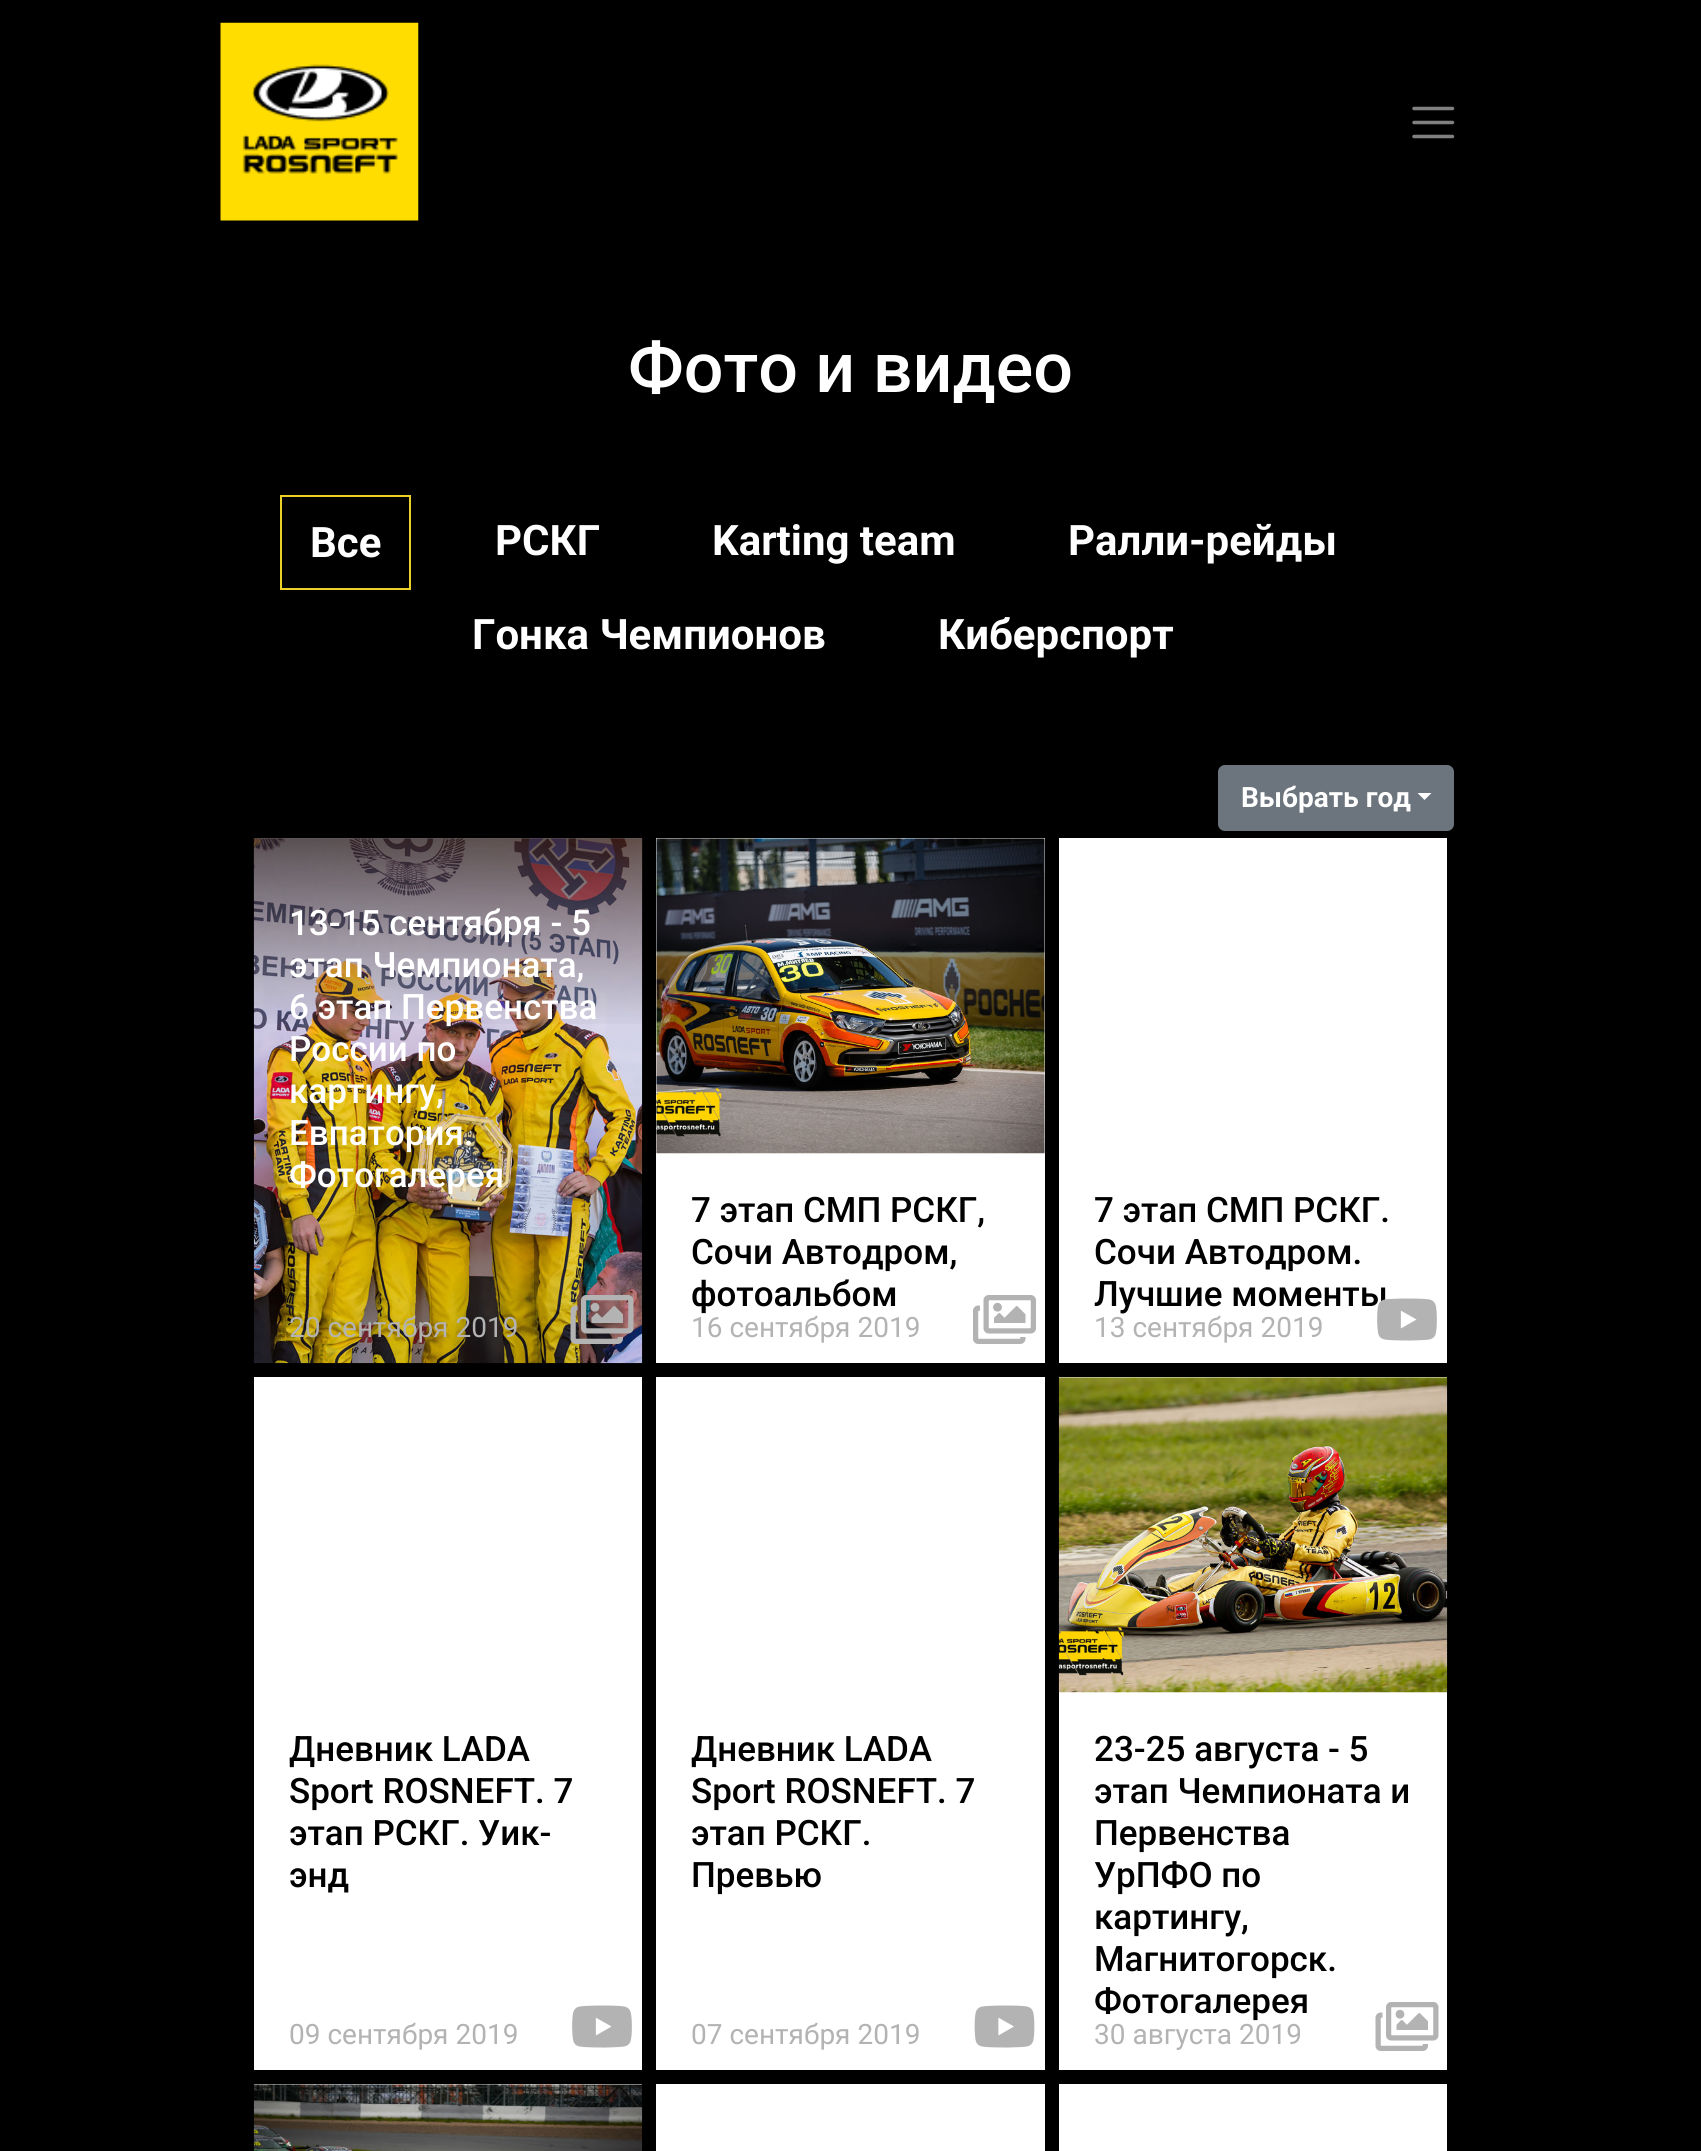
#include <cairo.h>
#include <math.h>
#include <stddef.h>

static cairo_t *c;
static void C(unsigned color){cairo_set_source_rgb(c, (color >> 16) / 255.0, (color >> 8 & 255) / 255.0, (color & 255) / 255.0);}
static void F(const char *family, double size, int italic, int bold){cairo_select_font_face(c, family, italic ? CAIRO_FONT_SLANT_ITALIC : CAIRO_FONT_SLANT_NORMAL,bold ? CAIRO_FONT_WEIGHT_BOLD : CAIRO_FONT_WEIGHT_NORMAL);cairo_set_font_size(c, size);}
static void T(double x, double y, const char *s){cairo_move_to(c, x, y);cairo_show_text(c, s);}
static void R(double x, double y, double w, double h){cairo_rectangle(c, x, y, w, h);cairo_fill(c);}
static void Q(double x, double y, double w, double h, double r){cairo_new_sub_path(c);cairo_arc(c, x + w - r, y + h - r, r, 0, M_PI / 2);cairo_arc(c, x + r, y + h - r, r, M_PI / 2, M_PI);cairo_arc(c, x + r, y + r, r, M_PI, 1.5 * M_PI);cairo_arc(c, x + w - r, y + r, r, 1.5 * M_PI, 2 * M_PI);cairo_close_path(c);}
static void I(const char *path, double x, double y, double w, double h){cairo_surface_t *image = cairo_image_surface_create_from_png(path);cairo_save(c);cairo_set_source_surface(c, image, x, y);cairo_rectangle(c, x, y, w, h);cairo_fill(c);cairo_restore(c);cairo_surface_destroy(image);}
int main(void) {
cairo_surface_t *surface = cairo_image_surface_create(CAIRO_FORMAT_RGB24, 1701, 2151);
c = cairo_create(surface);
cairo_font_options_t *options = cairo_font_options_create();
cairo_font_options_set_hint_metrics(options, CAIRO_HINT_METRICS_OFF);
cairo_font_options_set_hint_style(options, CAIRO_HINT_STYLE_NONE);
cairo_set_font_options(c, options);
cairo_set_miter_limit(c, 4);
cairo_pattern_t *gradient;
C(0x000000);
cairo_paint(c);
I("1.png",220,22,199,199);
cairo_new_path(c);
cairo_move_to(c,1414,108.5);
cairo_line_to(c,1452.5,108.5);
cairo_move_to(c,1414,122.5);
cairo_line_to(c,1452.5,122.5);
cairo_move_to(c,1414,136.5);
cairo_line_to(c,1452.5,136.5);
C(0x808080);
cairo_set_line_width(c,3.5);
cairo_set_line_cap(c,CAIRO_LINE_CAP_ROUND);
cairo_stroke(c);
F("Roboto Medium",70,0,0);
C(0xffffff);
T(628,392,"Фото и видео");
cairo_rectangle(c,281,496,129,93);
C(0xebd027);
cairo_set_line_width(c,2);
cairo_set_line_cap(c,CAIRO_LINE_CAP_BUTT);
cairo_stroke(c);
F("Roboto",42,0,1);
C(0xffffff);
T(310,557,"Все");
T(495,555,"РСКГ");
T(712,555,"Karting team");
T(1068,555,"Ралли-рейды");
T(472,649,"Гонка Чемпионов");
T(938,649,"Киберспорт");
C(0x6c757d);
Q(1219,766,234,64,6);
cairo_fill_preserve(c);
cairo_stroke(c);
F("Roboto",28,0,1);
C(0xffffff);
T(1241,807,"Выбрать год");
cairo_new_path(c);
cairo_move_to(c,1417.5,793);
cairo_line_to(c,1431.5,793);
cairo_line_to(c,1424.5,800);
cairo_close_path(c);
cairo_fill(c);
R(254,838,388,1);
I("2.png",253,838,390,526);
gradient = cairo_pattern_create_linear(448,1031,448,831);
cairo_pattern_add_color_stop_rgba(gradient,0,0,0,0,0);
cairo_pattern_add_color_stop_rgba(gradient,1,0,0,0,.65);
cairo_set_source(c,gradient);
cairo_pattern_destroy(gradient);
R(254,838,388,186);
F("Roboto Medium",35,0,0);
C(0xffffff);
T(289,935,"13-15 сентября - 5");
T(289,977,"этап Чемпионата,");
T(289,1019,"6 этап Первенства");
T(289,1061,"России по");
T(289,1103,"картингу,");
T(289,1145,"Евпатория.");
T(289,1187,"Фотогалерея");
F("Roboto",28,0,0);
C(0xb3b3b3);
T(289,1337,"20 сентября 2019");
I("3.png",570,1295,64,49);
C(0xffffff);
R(656,838,389,525);
I("4.png",656,838,389,316);
F("Roboto Medium",35,0,0);
C(0x000000);
T(691,1222,"7 этап СМП РСКГ,");
T(691,1264,"Сочи Автодром,");
T(691,1306,"фотоальбом");
F("Roboto",28,0,0);
C(0xb3b3b3);
T(691,1337,"16 сентября 2019");
I("5.png",973,1295,63,49);
C(0xffffff);
R(1059,838,388,525);
F("Roboto Medium",35,0,0);
C(0x000000);
T(1094,1222,"7 этап СМП РСКГ.");
T(1094,1264,"Сочи Автодром.");
T(1094,1306,"Лучшие моменты");
F("Roboto",28,0,0);
C(0xb3b3b3);
T(1094,1337,"13 сентября 2019");
I("6.png",1377,1298,60,43);
C(0xffffff);
R(254,1377,388,693);
F("Roboto Medium",35,0,0);
C(0x000000);
T(289,1761,"Дневник LADA");
T(289,1803,"Sport ROSNEFT. 7");
T(289,1845,"этап РСКГ. Уик-");
T(289,1887,"энд");
F("Roboto",28,0,0);
C(0xb3b3b3);
T(289,2044,"09 сентября 2019");
I("7.png",572,2005,60,43);
C(0xffffff);
R(656,1377,389,693);
F("Roboto Medium",35,0,0);
C(0x000000);
T(691,1761,"Дневник LADA");
T(691,1803,"Sport ROSNEFT. 7");
T(691,1845,"этап РСКГ.");
T(691,1887,"Превью");
F("Roboto",28,0,0);
C(0xb3b3b3);
T(691,2044,"07 сентября 2019");
I("8.png",974,2005,61,43);
C(0xffffff);
R(1059,1377,388,693);
I("9.png",1058,1377,390,316);
F("Roboto Medium",35,0,0);
C(0x000000);
T(1094,1761,"23-25 августа - 5");
T(1094,1803,"этап Чемпионата и");
T(1094,1845,"Первенства");
T(1094,1887,"УрПФО по");
T(1094,1929,"картингу,");
T(1094,1971,"Магнитогорск.");
T(1094,2013,"Фотогалерея");
F("Roboto",28,0,0);
C(0xb3b3b3);
T(1094,2044,"30 августа 2019");
I("10.png",1375,2002,64,49);
C(0xffffff);
R(254,2084,388,1);
I("11.png",253,2084,390,67);
R(656,2084,389,67);
R(1059,2084,388,67);
cairo_surface_write_to_png(surface, "o.png");
cairo_font_options_destroy(options);
cairo_destroy(c);
cairo_surface_destroy(surface);
return 0;
}
